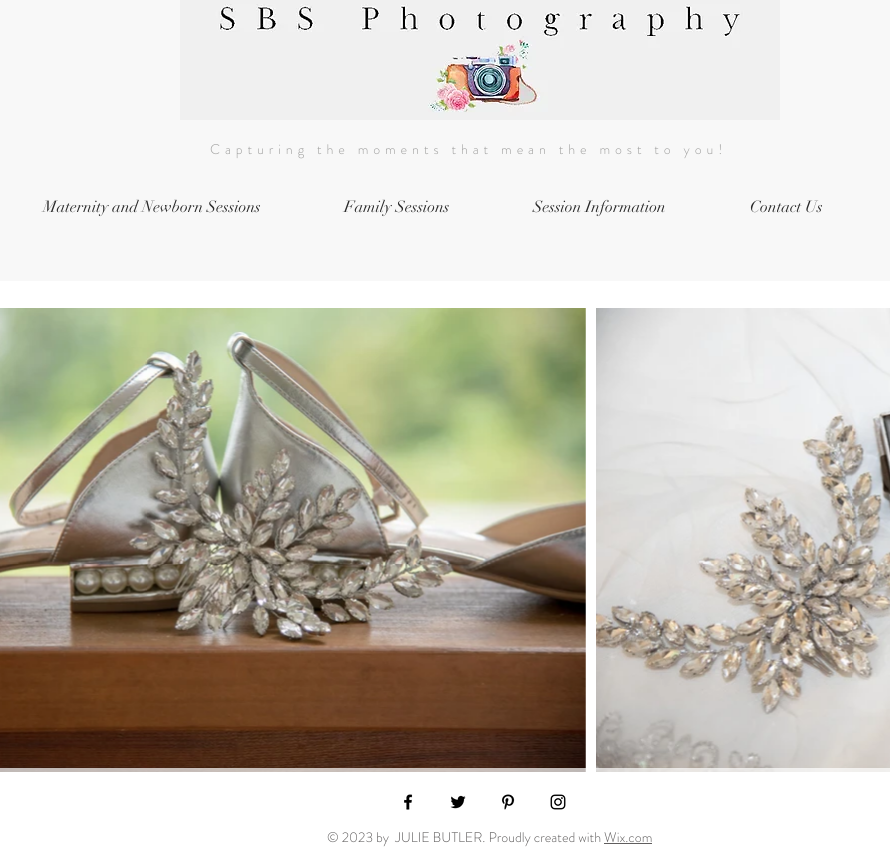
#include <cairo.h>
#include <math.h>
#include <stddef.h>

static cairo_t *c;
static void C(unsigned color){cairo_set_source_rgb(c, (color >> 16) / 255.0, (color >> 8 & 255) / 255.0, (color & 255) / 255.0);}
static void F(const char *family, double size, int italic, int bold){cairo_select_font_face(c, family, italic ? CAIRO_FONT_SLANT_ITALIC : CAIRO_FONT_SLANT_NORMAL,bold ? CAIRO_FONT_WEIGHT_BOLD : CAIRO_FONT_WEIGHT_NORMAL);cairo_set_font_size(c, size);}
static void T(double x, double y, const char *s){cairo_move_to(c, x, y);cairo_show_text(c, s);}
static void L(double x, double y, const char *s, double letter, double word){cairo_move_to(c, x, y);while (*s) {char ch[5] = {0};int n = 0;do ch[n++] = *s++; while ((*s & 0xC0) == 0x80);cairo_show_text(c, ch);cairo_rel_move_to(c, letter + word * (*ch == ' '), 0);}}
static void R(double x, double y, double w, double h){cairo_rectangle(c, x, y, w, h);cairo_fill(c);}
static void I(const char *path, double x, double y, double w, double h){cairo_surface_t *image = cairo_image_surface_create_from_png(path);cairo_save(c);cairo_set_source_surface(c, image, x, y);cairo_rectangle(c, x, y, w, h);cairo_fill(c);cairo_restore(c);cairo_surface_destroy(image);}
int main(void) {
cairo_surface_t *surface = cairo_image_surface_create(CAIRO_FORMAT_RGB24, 890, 860);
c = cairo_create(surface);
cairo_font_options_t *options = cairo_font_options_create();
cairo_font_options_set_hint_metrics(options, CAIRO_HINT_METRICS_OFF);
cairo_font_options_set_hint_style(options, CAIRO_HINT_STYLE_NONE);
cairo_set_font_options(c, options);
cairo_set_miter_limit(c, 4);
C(0xffffff);
cairo_paint(c);
C(0xf8f8f8);
R(0,0,890,281);
I("1.png",180,0,600,120);
F("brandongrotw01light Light",14,0,0);
C(0xa0a09f);
L(210,154,"Capturing the moments that mean the most to you!",4.9,0);
F("didot",16,0,0);
C(0x292929);
T(43,212,"Maternity and Newborn Sessions");
T(344,212,"Family Sessions");
T(533,212,"Session Information");
T(750,212,"Contact Us");
I("2.png",0,308,586,464);
I("3.png",596,308,294,464);
cairo_set_source_rgba(c,1,1,1,0.7);
R(0,768,890,4);
I("4.png",404,794,9,16);
I("5.png",450,795,16,14);
I("6.png",501,794,14,16);
I("7.png",550,794,16,16);
F("brandongrotw01light Light",14,0,0);
C(0x605e5e);
T(327,842,"© 2023 by  JULIE BUTLER. Proudly created with Wix.com");
R(604,843,48,1);
cairo_surface_write_to_png(surface, "o.png");
cairo_font_options_destroy(options);
cairo_destroy(c);
cairo_surface_destroy(surface);
return 0;
}
